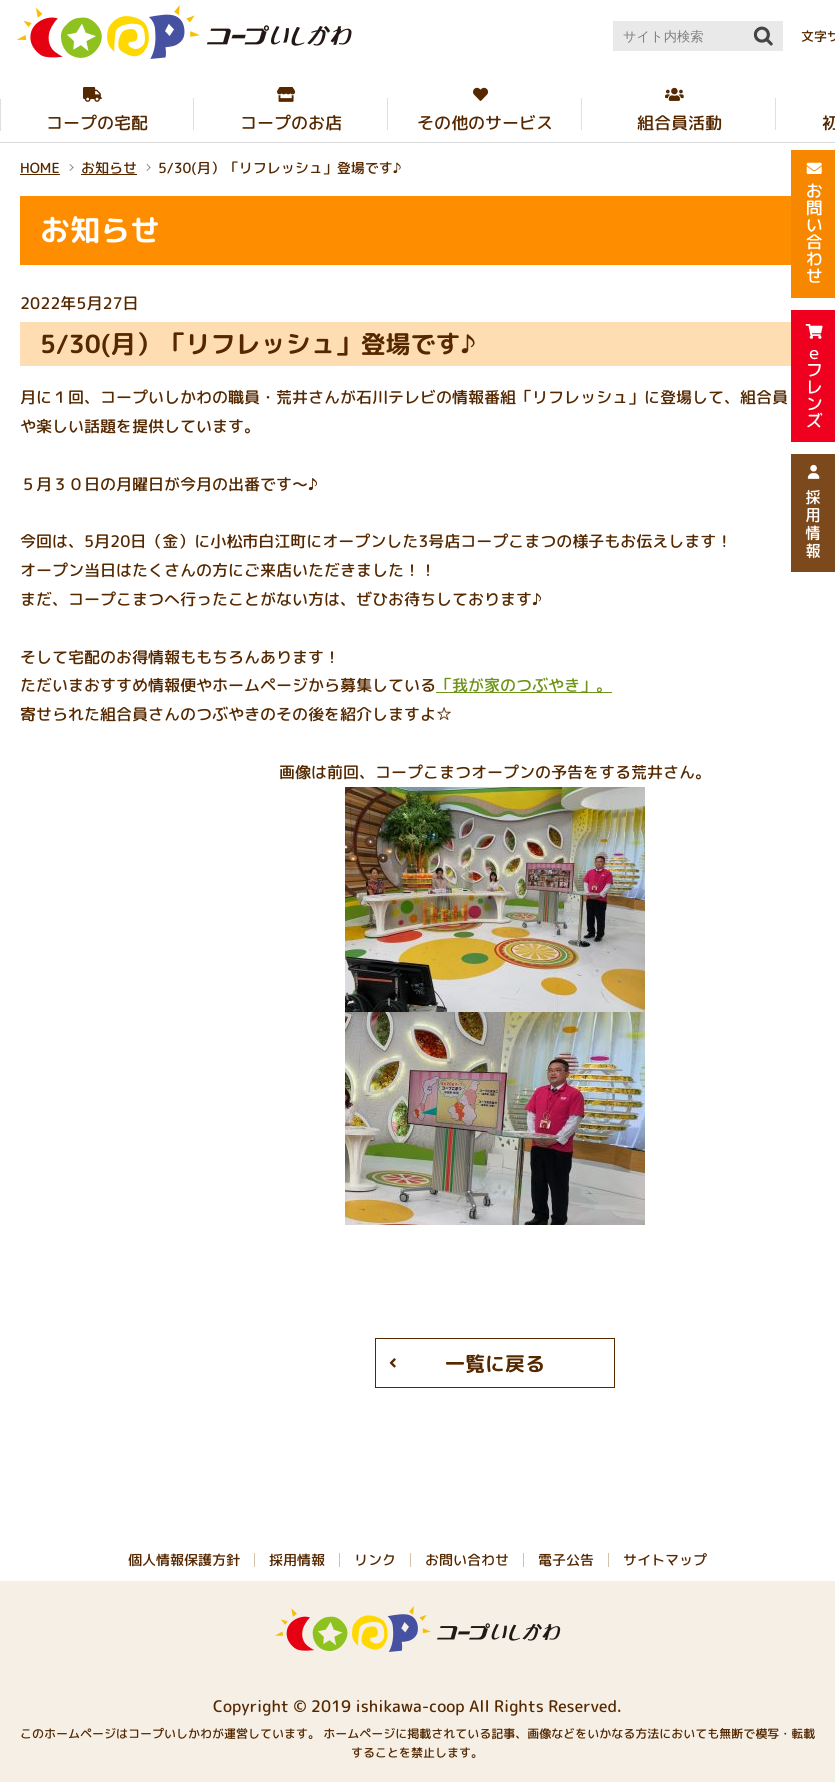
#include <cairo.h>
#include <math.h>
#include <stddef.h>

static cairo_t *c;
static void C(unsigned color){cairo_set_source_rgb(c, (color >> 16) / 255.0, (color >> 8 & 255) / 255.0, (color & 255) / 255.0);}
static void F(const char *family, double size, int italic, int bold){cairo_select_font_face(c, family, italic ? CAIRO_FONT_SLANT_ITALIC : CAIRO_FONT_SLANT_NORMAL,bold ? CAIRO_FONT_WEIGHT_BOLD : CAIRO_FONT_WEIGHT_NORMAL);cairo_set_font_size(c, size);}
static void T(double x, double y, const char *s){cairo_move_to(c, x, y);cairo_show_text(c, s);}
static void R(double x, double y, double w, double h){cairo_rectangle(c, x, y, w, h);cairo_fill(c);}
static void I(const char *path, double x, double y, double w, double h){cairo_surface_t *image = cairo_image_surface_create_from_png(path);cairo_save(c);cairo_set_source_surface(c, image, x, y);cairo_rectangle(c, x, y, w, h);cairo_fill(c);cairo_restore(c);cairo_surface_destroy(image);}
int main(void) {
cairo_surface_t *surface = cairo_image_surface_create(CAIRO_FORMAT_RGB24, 835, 1782);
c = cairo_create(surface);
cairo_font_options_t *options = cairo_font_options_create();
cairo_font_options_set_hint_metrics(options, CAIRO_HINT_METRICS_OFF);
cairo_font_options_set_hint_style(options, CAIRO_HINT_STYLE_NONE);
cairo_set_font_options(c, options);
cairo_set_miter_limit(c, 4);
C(0xffffff);
cairo_paint(c);
C(0xd9d9d9);
R(0,142,835,1);
I("1.png",16,5,336,54);
C(0xe9e9e9);
R(613,21,170,30);
F("WenQuanYi Zen Hei Medium",13.25,0,0);
C(0x7e7e7e);
T(623,41,"サイト内検索");
I("2.png",753,26,20,20);
F("Rounded Mplus 1c Medium",13,0,0);
C(0x552800);
T(801,41,"文字サ");
C(0xdfdfdf);
R(0,99,1,32);
R(193,98,1,32);
I("3.png",83,87,19,15);
F("Rounded Mplus 1c Medium",17,0,0);
C(0x552800);
T(46,129,"コープの宅配");
C(0xdfdfdf);
R(387,98,1,32);
I("4.png",277,87,19,15);
C(0x552800);
T(240,129,"コープのお店");
C(0xdfdfdf);
R(581,98,1,32);
I("5.png",473,87,15,14);
C(0x552800);
T(417,129,"その他のサービス");
C(0xdfdfdf);
R(775,98,1,32);
I("6.png",665,87,19,14);
C(0x552800);
T(637,129,"組合員活動");
T(822,129,"初");
I("7.png",791,150,44,148);
I("8.png",791,310,44,132);
I("9.png",791,454,44,118);
F("Rounded Mplus 1c Medium",14,0,0);
T(20,173,"HOME");
R(20,174,40,1);
C(0x666666);
cairo_new_path(c);
cairo_move_to(c,70,164);
cairo_line_to(c,73.5,167.5);
cairo_line_to(c,73,168);
cairo_line_to(c,69.5,164.5);
cairo_close_path(c);
cairo_fill(c);
cairo_new_path(c);
cairo_move_to(c,73,167);
cairo_line_to(c,73.5,167.5);
cairo_line_to(c,70,171);
cairo_line_to(c,69.5,170.5);
cairo_close_path(c);
cairo_fill(c);
C(0x552800);
T(81,173,"お知らせ");
R(81,174,56,1);
C(0x666666);
cairo_new_path(c);
cairo_move_to(c,147,164);
cairo_line_to(c,150.5,167.5);
cairo_line_to(c,150,168);
cairo_line_to(c,146.5,164.5);
cairo_close_path(c);
cairo_fill(c);
cairo_new_path(c);
cairo_move_to(c,150,167);
cairo_line_to(c,150.5,167.5);
cairo_line_to(c,147,171);
cairo_line_to(c,146.5,170.5);
cairo_close_path(c);
cairo_fill(c);
C(0x552800);
T(158,173,"5/30(月）「リフレッシュ」登場です♪");
C(0xff8d00);
R(20,196,771,69);
F("Rounded Mplus 1c Bold",30,0,1);
C(0xffffff);
T(40,241,"お知らせ");
F("Rounded Mplus 1c Medium",16,0,0);
C(0x552800);
T(20,309,"2022年5月27日");
C(0xffddb2);
R(20,322,771,44);
F("Rounded Mplus 1c Bold",25,0,1);
C(0x552800);
T(40,353,"5/30(月）「リフレッシュ」登場です♪");
F("Rounded Mplus 1c Medium",16,0,0);
T(20,403,"月に１回、コープいしかわの職員・荒井さんが石川テレビの情報番組「リフレッシュ」に登場して、組合員");
T(20,432,"や楽しい話題を提供しています。");
T(20,490,"５月３０日の月曜日が今月の出番です～♪");
T(20,547,"今回は、5月20日（金）に小松市白江町にオープンした3号店コープこまつの様子もお伝えします！");
T(20,576,"オープン当日はたくさんの方にご来店いただきました！！");
T(20,605,"まだ、コープこまつへ行ったことがない方は、ぜひお待ちしております♪");
T(20,663,"そして宅配のお得情報ももちろんあります！");
T(20,691,"ただいまおすすめ情報便やホームページから募集している");
C(0x6d9317);
R(436,692,176,1);
T(436,691,"「我が家のつぶやき」。");
C(0x552800);
T(20,720,"寄せられた組合員さんのつぶやきのその後を紹介しますよ☆");
T(279,778,"画像は前回、コープこまつオープンの予告をする荒井さん。");
I("10.png",345,787,300,225);
I("11.png",345,1012,300,213);
cairo_rectangle(c,375.5,1338.5,239,49);
cairo_set_line_width(c,1);
cairo_stroke(c);
I("12.png",389,1358,7,10);
F("Rounded Mplus 1c Bold",20,0,1);
T(445,1371,"一覧に戻る");
F("Rounded Mplus 1c Medium",14,0,0);
T(128,1565,"個人情報保護方針");
C(0xd4c3aa);
R(254,1553,1,14);
C(0x552800);
T(269,1565,"採用情報");
C(0xd4c3aa);
R(339,1553,1,14);
C(0x552800);
T(354,1565,"リンク");
C(0xd4c3aa);
R(410,1553,1,14);
C(0x552800);
T(425,1565,"お問い合わせ");
C(0xd4c3aa);
R(523,1553,1,14);
C(0x552800);
T(538,1565,"電子公告");
C(0xd4c3aa);
R(608,1553,1,14);
C(0x552800);
T(623,1565,"サイトマップ");
C(0xf5efe6);
R(0,1581,835,201);
I("13.png",275,1606,286,46);
F("Rounded Mplus 1c Medium",16,0,0);
C(0x552800);
T(213,1712,"Copyright © 2019 ishikawa-coop All Rights Reserved.");
F("Rounded Mplus 1c Medium",12,0,0);
T(20,1738,"このホームページはコープいしかわが運営しています。 ホームページに掲載されている記事、画像などをいかなる方法においても無断で模写・転載");
T(351,1757,"することを禁止します。");
cairo_surface_write_to_png(surface, "o.png");
cairo_font_options_destroy(options);
cairo_destroy(c);
cairo_surface_destroy(surface);
return 0;
}
